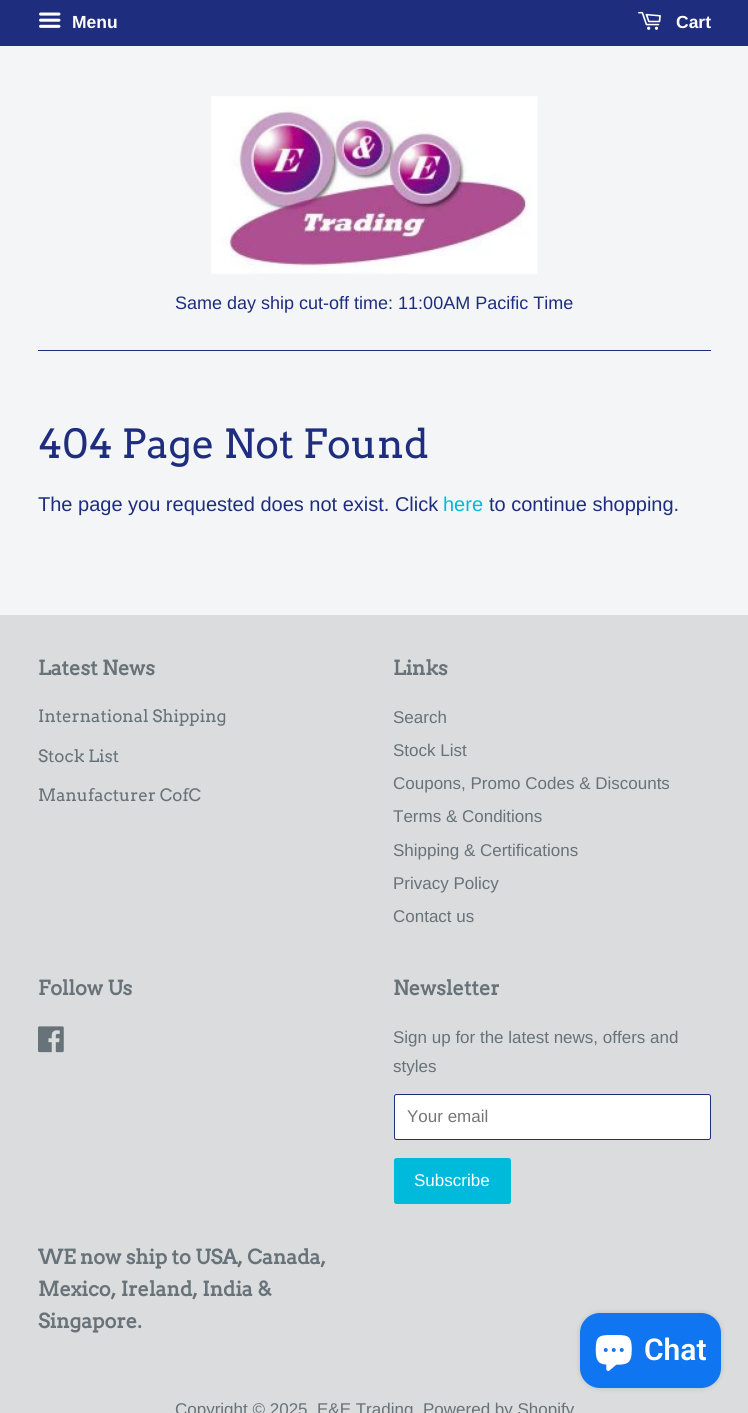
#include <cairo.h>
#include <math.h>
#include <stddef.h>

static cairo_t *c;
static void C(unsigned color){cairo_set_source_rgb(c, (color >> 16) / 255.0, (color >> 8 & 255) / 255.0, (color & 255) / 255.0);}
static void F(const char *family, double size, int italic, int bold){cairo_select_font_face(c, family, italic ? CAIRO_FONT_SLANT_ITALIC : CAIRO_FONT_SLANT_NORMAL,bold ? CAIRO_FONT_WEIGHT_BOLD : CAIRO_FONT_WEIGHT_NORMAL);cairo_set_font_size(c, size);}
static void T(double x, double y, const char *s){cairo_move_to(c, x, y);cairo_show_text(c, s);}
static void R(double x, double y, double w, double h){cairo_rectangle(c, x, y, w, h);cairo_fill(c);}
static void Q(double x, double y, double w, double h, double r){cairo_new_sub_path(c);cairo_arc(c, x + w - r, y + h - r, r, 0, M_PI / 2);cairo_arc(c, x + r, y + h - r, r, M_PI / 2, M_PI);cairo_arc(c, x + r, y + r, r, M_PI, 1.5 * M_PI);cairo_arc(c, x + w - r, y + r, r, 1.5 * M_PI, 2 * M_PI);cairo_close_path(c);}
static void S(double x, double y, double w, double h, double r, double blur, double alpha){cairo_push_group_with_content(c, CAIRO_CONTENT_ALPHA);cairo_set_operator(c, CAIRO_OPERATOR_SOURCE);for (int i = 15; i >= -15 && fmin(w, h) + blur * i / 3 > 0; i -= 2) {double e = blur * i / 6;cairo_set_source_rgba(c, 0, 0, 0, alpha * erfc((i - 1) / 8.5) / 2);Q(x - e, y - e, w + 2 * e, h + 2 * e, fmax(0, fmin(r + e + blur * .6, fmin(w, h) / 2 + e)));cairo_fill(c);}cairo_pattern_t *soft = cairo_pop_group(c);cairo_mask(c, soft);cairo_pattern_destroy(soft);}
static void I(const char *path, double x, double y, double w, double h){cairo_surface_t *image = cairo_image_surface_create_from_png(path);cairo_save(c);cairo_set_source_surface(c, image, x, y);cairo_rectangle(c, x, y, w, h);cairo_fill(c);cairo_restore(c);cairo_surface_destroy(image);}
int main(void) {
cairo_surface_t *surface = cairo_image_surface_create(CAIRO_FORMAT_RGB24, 748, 1413);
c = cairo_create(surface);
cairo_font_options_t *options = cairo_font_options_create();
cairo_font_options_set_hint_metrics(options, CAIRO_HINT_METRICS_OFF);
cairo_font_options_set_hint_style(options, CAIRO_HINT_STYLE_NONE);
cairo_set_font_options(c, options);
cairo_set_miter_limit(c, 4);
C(0xf3f5f6);
cairo_paint(c);
C(0x1e2d7d);
R(0,0,748,46);
I("1.png",39,12,22,16);
F("Liberation Sans",17.5,0,1);
C(0xffffff);
T(72,28,"Menu");
I("2.png",638,11,23,19);
T(676,28,"Cart");
C(0x1e2d7d);
R(38,350,673,1);
I("3.png",211,96,327,178);
F("Liberation Sans",18,0,0);
T(175,309,"Same day ship cut-off time: 11:00AM Pacific Time");
F("Arvo",40,0,0);
T(38,458,"404 Page Not Found");
F("Liberation Sans",20,0,0);
T(38,511,"The page you requested does not exist. Click");
C(0x00badb);
T(443,511,"here");
C(0x1e2d7d);
T(489,511,"to continue shopping.");
C(0xdadcdd);
R(0,615,748,798);
F("Arvo",20,0,1);
C(0x677279);
T(38,675,"Latest News");
F("Arvo",17,0,0);
T(38,722,"International Shipping");
T(38,762,"Stock List");
T(38,801,"Manufacturer CofC");
F("Arvo",20,0,1);
T(393,675,"Links");
F("Liberation Sans",17,0,0);
T(393,723,"Search");
T(393,756,"Stock List");
T(393,789,"Coupons, Promo Codes & Discounts");
T(393,822,"Terms & Conditions");
T(393,856,"Shipping & Certifications");
T(393,889,"Privacy Policy");
T(393,922,"Contact us");
F("Arvo",20,0,1);
T(38,995,"Follow Us");
I("4.png",38,1026,26,27);
T(393,995,"Newsletter");
F("Liberation Sans",17,0,0);
T(393,1043,"Sign up for the latest news, offers and");
T(393,1072,"styles");
C(0xffffff);
Q(394.5,1094.5,316,45,2);
cairo_fill_preserve(c);
C(0x1e2d7d);
cairo_set_line_width(c,1);
cairo_stroke(c);
C(0x757575);
T(407,1122,"Your email");
C(0x00badb);
Q(394,1158,117,46,2.5);
cairo_fill(c);
C(0xffffff);
T(414,1186,"Subscribe");
F("Arvo",20,0,1);
C(0x677279);
T(38,1264,"WE now ship to USA, Canada,");
T(38,1296,"Mexico, Ireland, India &");
T(38,1328,"Singapore.");
F("Liberation Sans",17,0,0);
T(175,1415,"Copyright © 2025");
T(317,1415,"E&E Trading");
T(423,1415,"Powered by Shopify");
C(0x000000);
S(580,1313,141,75,20,3,.15);
C(0x0f75f0);
Q(580,1313,141,75,20);
cairo_fill(c);
I("5.png",595,1335,37,36);
F("Roboto SemiBold",30,0,0);
C(0xffffff);
T(644,1360,"Chat");
cairo_surface_write_to_png(surface, "o.png");
cairo_font_options_destroy(options);
cairo_destroy(c);
cairo_surface_destroy(surface);
return 0;
}
